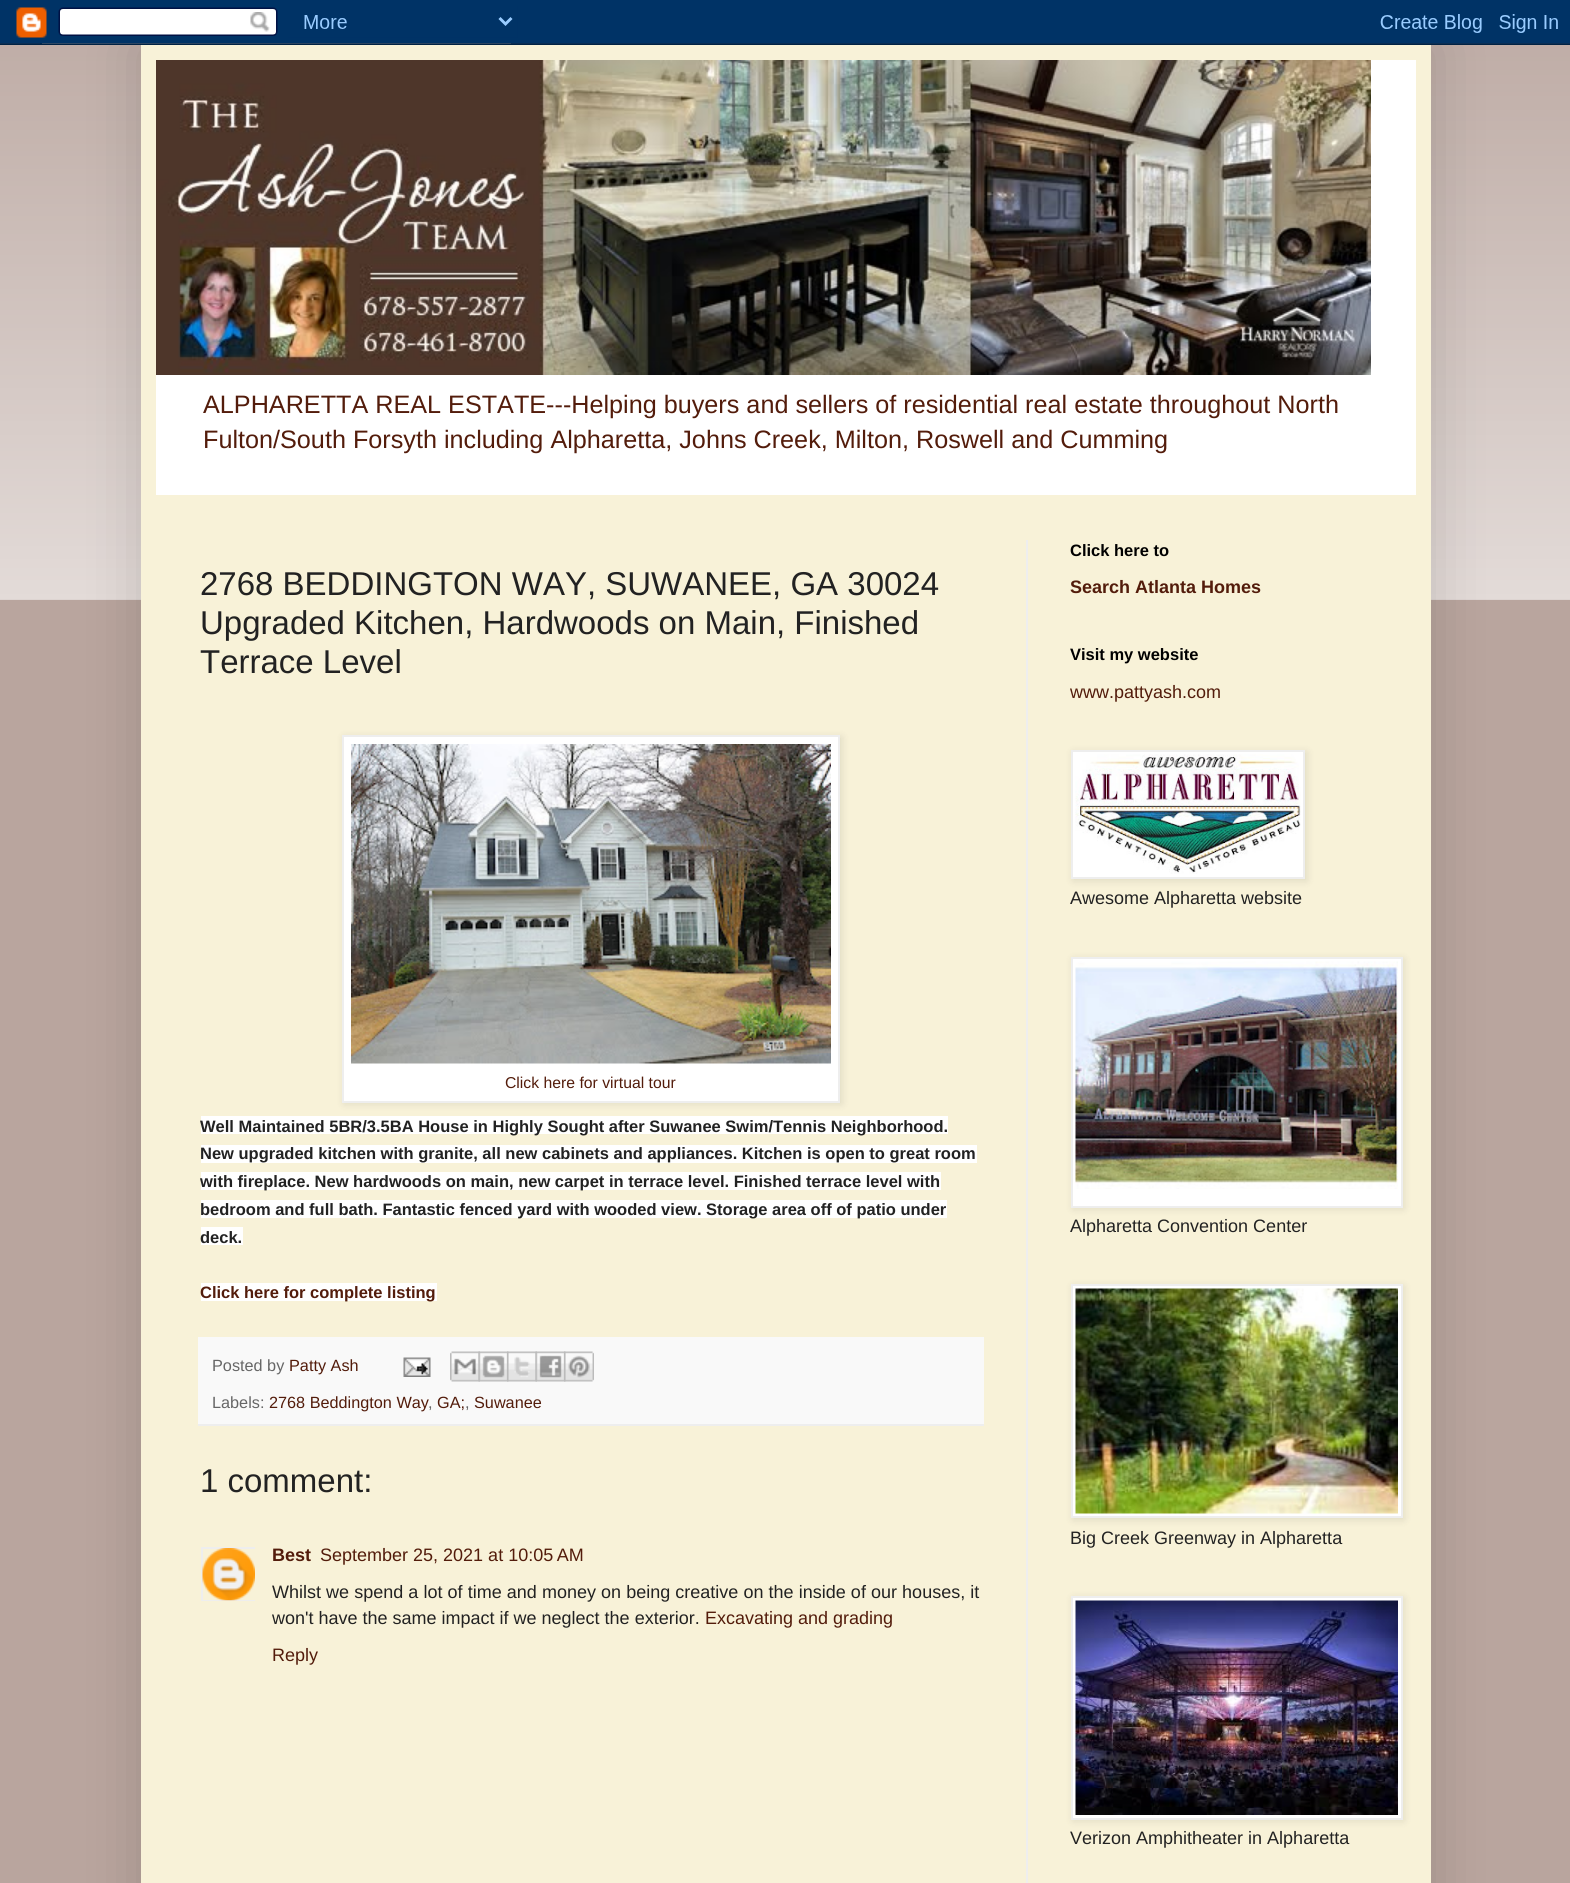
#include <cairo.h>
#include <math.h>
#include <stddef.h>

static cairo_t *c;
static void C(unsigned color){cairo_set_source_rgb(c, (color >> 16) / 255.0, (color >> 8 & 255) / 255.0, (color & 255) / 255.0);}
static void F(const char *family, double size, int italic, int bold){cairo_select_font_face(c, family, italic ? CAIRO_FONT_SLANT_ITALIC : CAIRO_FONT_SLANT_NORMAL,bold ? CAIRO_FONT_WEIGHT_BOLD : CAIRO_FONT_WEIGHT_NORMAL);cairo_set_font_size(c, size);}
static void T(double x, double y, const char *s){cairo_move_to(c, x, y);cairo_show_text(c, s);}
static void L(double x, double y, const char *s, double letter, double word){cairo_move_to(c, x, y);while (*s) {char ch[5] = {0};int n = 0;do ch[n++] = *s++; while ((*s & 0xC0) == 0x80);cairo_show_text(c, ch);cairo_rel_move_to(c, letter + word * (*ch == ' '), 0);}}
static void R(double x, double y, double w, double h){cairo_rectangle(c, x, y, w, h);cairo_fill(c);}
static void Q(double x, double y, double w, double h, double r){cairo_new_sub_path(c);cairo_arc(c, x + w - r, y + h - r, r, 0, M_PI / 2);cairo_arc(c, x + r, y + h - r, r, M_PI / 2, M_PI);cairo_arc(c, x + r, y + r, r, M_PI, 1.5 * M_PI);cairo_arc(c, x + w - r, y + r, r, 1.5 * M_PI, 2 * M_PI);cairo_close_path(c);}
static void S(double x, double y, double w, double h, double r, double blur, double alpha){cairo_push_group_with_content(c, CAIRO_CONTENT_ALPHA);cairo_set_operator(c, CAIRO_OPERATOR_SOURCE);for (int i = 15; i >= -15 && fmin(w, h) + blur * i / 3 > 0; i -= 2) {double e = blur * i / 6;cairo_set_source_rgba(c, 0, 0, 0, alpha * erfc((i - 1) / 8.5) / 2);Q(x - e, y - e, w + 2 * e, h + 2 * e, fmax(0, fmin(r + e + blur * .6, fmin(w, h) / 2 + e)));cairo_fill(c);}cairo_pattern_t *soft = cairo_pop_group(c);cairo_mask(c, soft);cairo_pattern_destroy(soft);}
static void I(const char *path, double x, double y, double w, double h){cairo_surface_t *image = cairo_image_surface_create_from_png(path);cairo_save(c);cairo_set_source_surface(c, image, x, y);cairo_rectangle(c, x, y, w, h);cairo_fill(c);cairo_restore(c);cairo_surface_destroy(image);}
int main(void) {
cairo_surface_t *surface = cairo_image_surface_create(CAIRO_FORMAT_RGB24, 1570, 1883);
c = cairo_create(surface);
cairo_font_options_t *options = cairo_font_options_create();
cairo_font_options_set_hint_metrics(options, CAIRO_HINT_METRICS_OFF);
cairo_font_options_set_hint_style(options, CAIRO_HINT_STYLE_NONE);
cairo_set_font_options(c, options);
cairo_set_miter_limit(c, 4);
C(0xb9a59e);
cairo_paint(c);
I("2.png",0,43,1570,557);
C(0x000000);
S(141,45,1290,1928,0,30,.15);
I("1.png",0,0,1570,45);
C(0xf8f2d8);
R(141,45,1290,1838);
C(0xffffff);
R(156,60,1260,435);
I("3.png",156,60,1215,315);
F("Liberation Sans",25.2,0,0);
C(0x531c0b);
T(203,413,"ALPHARETTA REAL ESTATE---Helping buyers and sellers of residential real estate throughout North");
T(203,448,"Fulton/South Forsyth including Alpharetta, Johns Creek, Milton, Roswell and Cumming");
C(0xeeeeee);
R(1026,540,2,1343);
F("Liberation Sans",33,0,0);
C(0x222222);
T(200,595,"2768 BEDDINGTON WAY, SUWANEE, GA 30024");
T(200,634,"Upgraded Kitchen, Hardwoods on Main, Finished");
T(200,673,"Terrace Level");
C(0xffffff);
R(201,1116,747,18);
C(0x000000);
S(344,737,498,367,0,4,.1);
C(0xffffff);
cairo_rectangle(c,343,736,496,366);
cairo_fill_preserve(c);
C(0xeeeeee);
cairo_stroke(c);
I("4.png",351,744,480,320);
F("Liberation Sans",15.75,0,0);
C(0x531c0b);
T(505,1088,"Click here for virtual tour");
F("Liberation Sans",16.5,0,1);
C(0x222222);
T(200,1132,"Well Maintained 5BR/3.5BA House in Highly Sought after Suwanee Swim/Tennis Neighborhood.");
C(0xffffff);
R(201,1145,776,18);
C(0x222222);
T(200,1159,"New upgraded kitchen with granite, all new cabinets and appliances. Kitchen is open to great room");
C(0xffffff);
R(201,1172,740,18);
C(0x222222);
T(200,1187,"with fireplace. New hardwoods on main, new carpet in terrace level. Finished terrace level with");
C(0xffffff);
R(201,1200,746,18);
C(0x222222);
T(200,1215,"bedroom and full bath. Fantastic fenced yard with wooded view. Storage area off of patio under");
C(0xffffff);
R(201,1227,42,18);
C(0x222222);
T(200,1243,"deck.");
C(0xffffff);
R(201,1283,236,18);
C(0x531c0b);
T(200,1298,"Click here for complete listing");
C(0xf9f9f9);
R(198,1337,786,87);
C(0xeeeeee);
R(198,1424,786,2);
F("Liberation Sans",16.25,0,0);
C(0x666666);
T(212,1371,"Posted by");
C(0x531c0b);
T(289,1371,"Patty Ash");
I("5.png",403,1357,28,20);
I("6.png",450,1351,30,31);
I("7.png",478,1351,31,31);
I("8.png",507,1351,30,31);
I("9.png",535,1351,31,31);
I("10.png",564,1351,30,31);
C(0x666666);
T(212,1408,"Labels:");
C(0x531c0b);
T(269,1408,"2768 Beddington Way");
C(0x666666);
T(428,1408,",");
C(0x531c0b);
T(437,1408,"GA;");
C(0x666666);
T(465,1408,",");
C(0x531c0b);
T(474,1408,"Suwanee");
F("Liberation Sans",33,0,0);
C(0x222222);
T(200,1492,"1 comment:");
cairo_save(c);
cairo_rectangle(c,201,1547,54,54);
cairo_clip(c);
cairo_rectangle(c,202,1548,54,53);
C(0xeeeeee);
cairo_stroke(c);
cairo_restore(c);
I("11.png",202,1548,53,53);
F("Liberation Sans",18,0,1);
C(0x531c0b);
T(272,1561,"Best");
F("Liberation Sans",18,0,0);
T(320,1561,"September 25, 2021 at 10:05 AM");
C(0x222222);
L(272,1598,"Whilst we spend a lot of time and money on being creative on the inside of our houses, it",0,.1);
T(272,1624,"won't have the same impact if we neglect the exterior.");
C(0x531c0b);
T(705,1624,"Excavating and grading");
T(272,1661,"Reply");
F("Liberation Sans",16.5,0,1);
C(0x000000);
T(1070,556,"Click here to");
F("Liberation Sans",18,0,1);
C(0x531c0b);
T(1070,593,"Search Atlanta Homes");
F("Liberation Sans",16.5,0,1);
C(0x000000);
T(1070,660,"Visit my website");
F("Liberation Sans",18,0,0);
C(0x531c0b);
T(1070,698,"www.pattyash.com");
C(0x000000);
S(1073,752,234,129,0,4,.1);
C(0xffffff);
cairo_rectangle(c,1072,751,232,127);
cairo_fill_preserve(c);
C(0xeeeeee);
cairo_stroke(c);
I("12.png",1075,754,226,120);
C(0x222222);
T(1070,904,"Awesome Alpharetta website");
C(0x000000);
S(1073,959,331,250,0,4,.1);
C(0xffffff);
cairo_rectangle(c,1072,958,330,249);
cairo_fill_preserve(c);
C(0xeeeeee);
cairo_stroke(c);
I("13.png",1075,961,323,228);
C(0x222222);
T(1070,1232,"Alpharetta Convention Center");
C(0x000000);
S(1073,1286,331,234,0,4,.1);
C(0xffffff);
cairo_rectangle(c,1072,1285,330,232);
cairo_fill_preserve(c);
C(0xeeeeee);
cairo_stroke(c);
I("14.png",1075,1288,323,226);
C(0x222222);
T(1070,1544,"Big Creek Greenway in Alpharetta");
C(0x000000);
S(1073,1598,331,223,0,4,.1);
C(0xffffff);
cairo_rectangle(c,1072,1597,330,222);
cairo_fill_preserve(c);
C(0xeeeeee);
cairo_stroke(c);
I("15.png",1075,1600,323,215);
C(0x222222);
T(1070,1844,"Verizon Amphitheater in Alpharetta");
cairo_surface_write_to_png(surface, "o.png");
cairo_font_options_destroy(options);
cairo_destroy(c);
cairo_surface_destroy(surface);
return 0;
}
